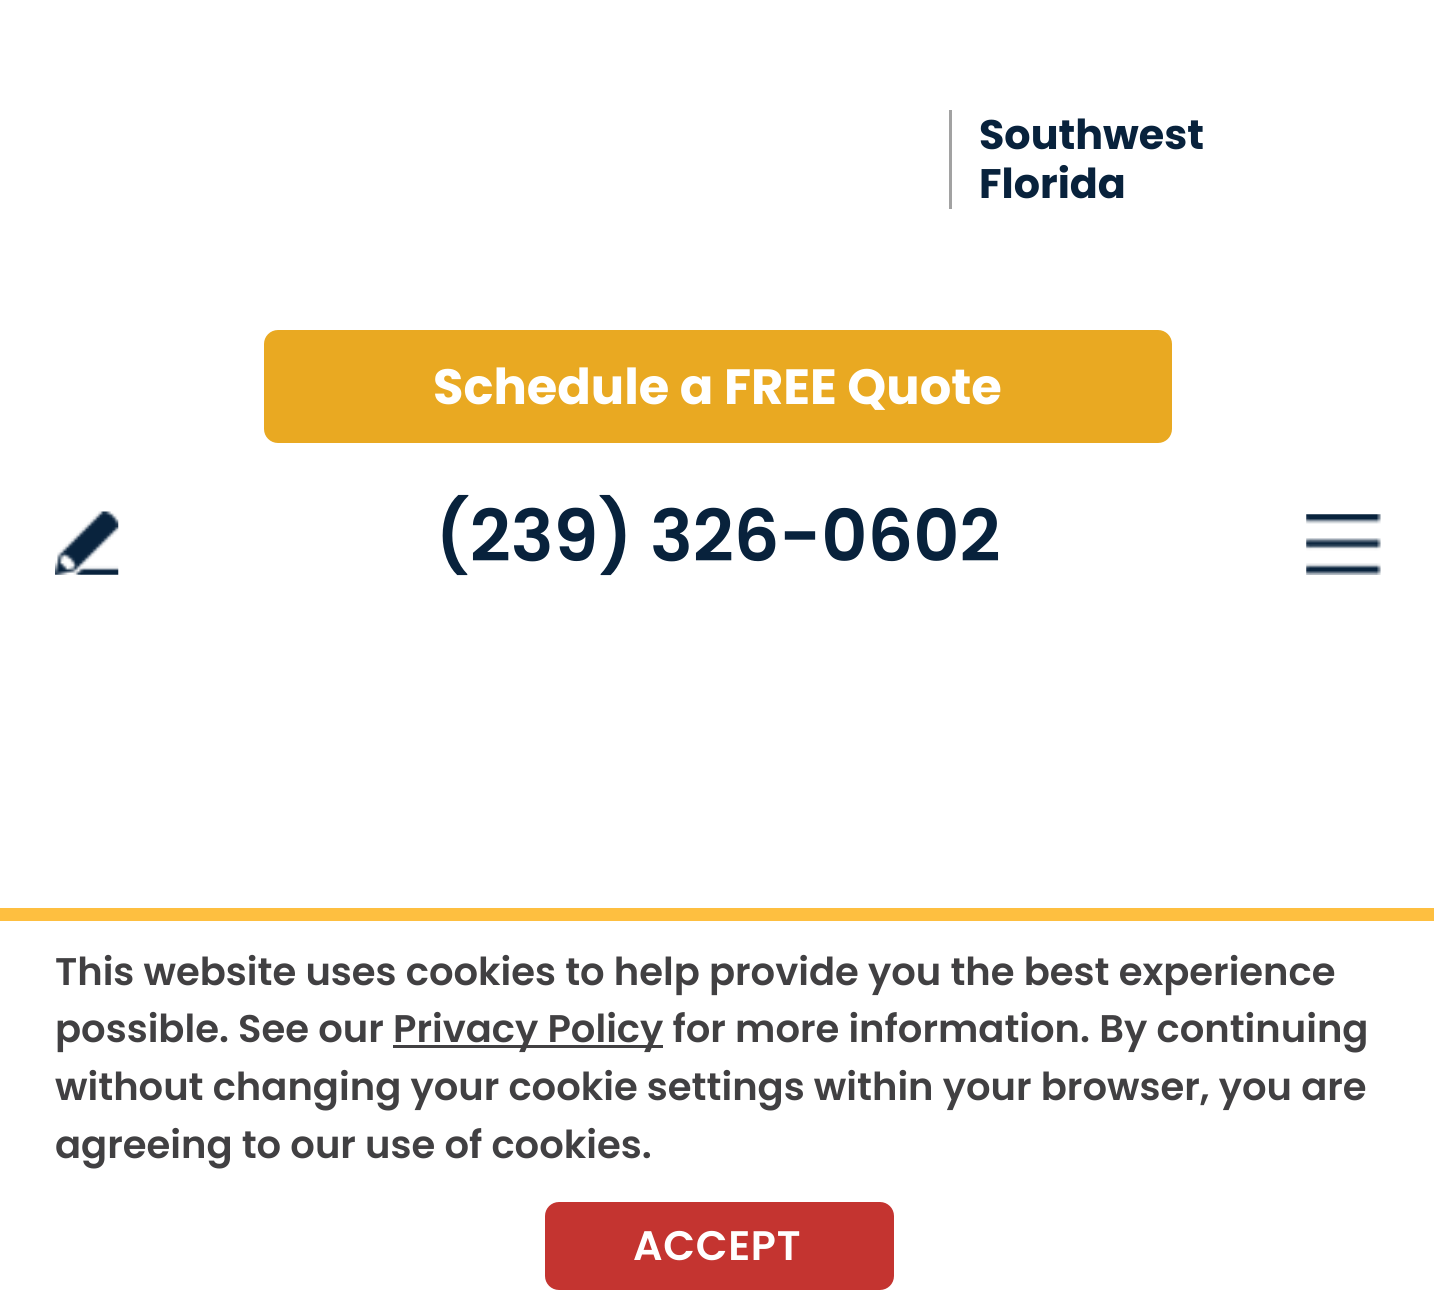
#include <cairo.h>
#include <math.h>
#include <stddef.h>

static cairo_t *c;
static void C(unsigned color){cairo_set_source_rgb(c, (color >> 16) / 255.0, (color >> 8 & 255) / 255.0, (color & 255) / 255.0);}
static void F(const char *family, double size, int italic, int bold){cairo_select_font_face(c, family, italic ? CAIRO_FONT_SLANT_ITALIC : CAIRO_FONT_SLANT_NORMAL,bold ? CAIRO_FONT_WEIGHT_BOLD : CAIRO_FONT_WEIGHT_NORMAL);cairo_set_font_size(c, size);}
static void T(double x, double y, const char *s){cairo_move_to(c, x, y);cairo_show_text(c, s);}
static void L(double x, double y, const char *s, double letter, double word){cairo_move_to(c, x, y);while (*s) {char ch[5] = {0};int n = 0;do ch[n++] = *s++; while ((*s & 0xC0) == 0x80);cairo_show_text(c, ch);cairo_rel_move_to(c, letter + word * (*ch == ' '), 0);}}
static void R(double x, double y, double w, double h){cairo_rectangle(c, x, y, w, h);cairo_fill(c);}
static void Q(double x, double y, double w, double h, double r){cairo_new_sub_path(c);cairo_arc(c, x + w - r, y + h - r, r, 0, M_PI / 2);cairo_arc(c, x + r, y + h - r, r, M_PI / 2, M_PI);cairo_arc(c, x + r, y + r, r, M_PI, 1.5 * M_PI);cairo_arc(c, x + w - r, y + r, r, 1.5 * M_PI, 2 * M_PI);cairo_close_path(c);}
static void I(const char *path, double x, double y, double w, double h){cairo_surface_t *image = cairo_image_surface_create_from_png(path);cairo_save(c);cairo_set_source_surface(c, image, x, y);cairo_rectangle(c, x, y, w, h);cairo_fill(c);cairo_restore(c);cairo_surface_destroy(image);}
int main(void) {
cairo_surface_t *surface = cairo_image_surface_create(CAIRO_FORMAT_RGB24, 1434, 1310);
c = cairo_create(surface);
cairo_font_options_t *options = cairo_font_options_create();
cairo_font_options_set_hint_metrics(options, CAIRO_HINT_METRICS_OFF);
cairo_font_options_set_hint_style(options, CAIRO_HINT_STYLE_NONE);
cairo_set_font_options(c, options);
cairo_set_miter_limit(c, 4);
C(0xffffff);
cairo_paint(c);
C(0xa2a2a2);
R(949,110,3,99);
F("Poppins",41.25,0,1);
C(0x08223c);
T(979,149,"Southwest");
T(979,198,"Florida");
C(0xe9a922);
Q(264,330,908,113,14);
cairo_fill(c);
F("Poppins",49.5,0,1);
C(0xffffff);
T(433,404,"Schedule a FREE Quote");
I("1.png",55,511,64,64);
F("Poppins SemiBold",71.5,0,0);
C(0x08223c);
T(435,561,"(239) 326-0602");
I("2.png",1306,514,75,61);
C(0xfebf40);
R(0,908,1434,13);
F("Poppins SemiBold",38.5,0,0);
C(0x414042);
T(55,985,"This website uses cookies to help provide you the best experience");
T(55,1042,"possible. See our");
R(393,1045,270,3);
T(393,1042,"Privacy Policy for more information. By continuing");
T(55,1100,"without changing your cookie settings within your browser, you are");
T(55,1158,"agreeing to our use of cookies.");
C(0xc43430);
Q(546.5,1203.5,346,85,12.5);
cairo_fill_preserve(c);
cairo_set_line_width(c,3);
cairo_stroke(c);
F("Poppins SemiBold",41.25,0,0);
C(0xffffff);
L(633,1260,"ACCEPT",.75,0);
cairo_surface_write_to_png(surface, "o.png");
cairo_font_options_destroy(options);
cairo_destroy(c);
cairo_surface_destroy(surface);
return 0;
}
